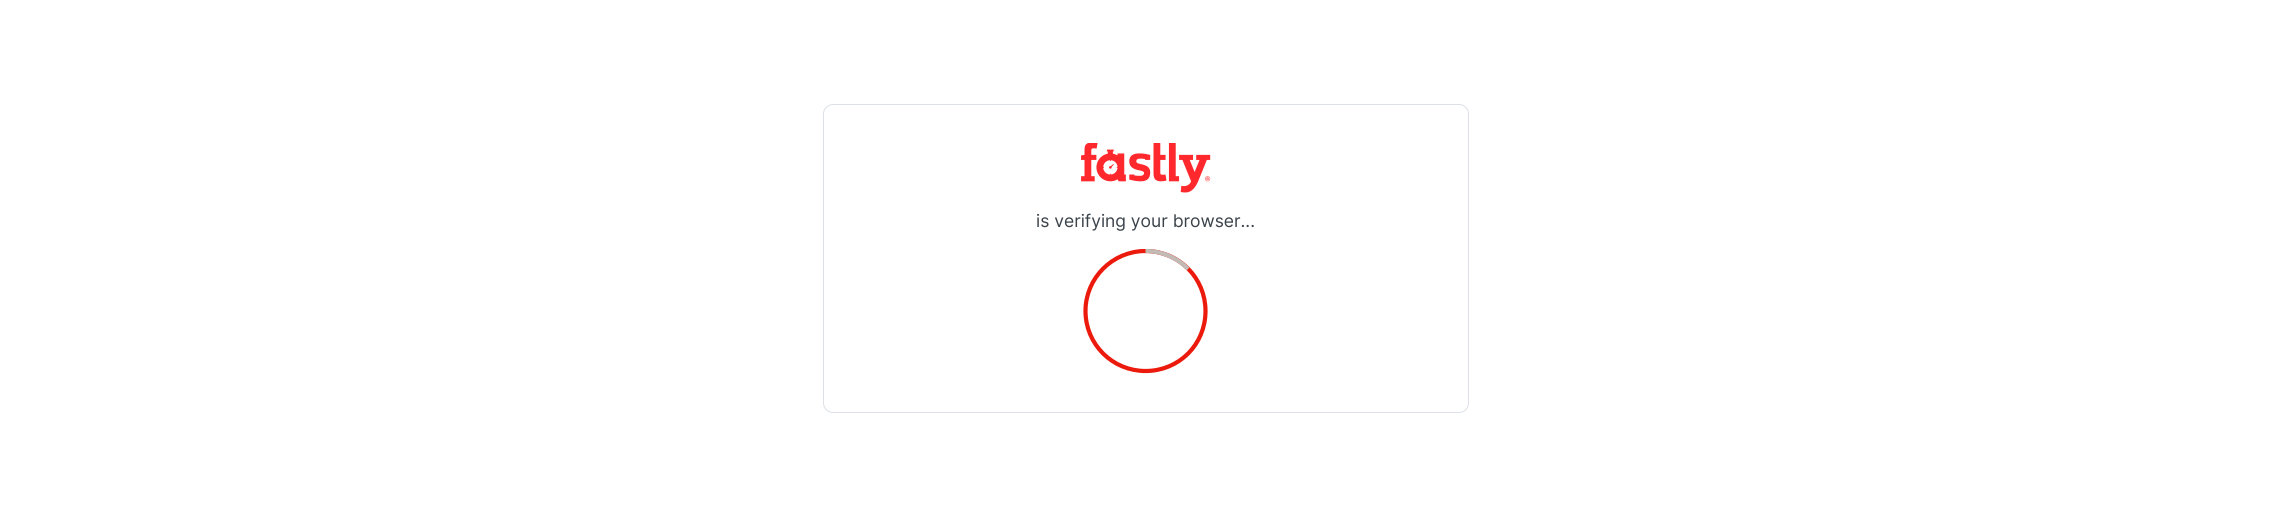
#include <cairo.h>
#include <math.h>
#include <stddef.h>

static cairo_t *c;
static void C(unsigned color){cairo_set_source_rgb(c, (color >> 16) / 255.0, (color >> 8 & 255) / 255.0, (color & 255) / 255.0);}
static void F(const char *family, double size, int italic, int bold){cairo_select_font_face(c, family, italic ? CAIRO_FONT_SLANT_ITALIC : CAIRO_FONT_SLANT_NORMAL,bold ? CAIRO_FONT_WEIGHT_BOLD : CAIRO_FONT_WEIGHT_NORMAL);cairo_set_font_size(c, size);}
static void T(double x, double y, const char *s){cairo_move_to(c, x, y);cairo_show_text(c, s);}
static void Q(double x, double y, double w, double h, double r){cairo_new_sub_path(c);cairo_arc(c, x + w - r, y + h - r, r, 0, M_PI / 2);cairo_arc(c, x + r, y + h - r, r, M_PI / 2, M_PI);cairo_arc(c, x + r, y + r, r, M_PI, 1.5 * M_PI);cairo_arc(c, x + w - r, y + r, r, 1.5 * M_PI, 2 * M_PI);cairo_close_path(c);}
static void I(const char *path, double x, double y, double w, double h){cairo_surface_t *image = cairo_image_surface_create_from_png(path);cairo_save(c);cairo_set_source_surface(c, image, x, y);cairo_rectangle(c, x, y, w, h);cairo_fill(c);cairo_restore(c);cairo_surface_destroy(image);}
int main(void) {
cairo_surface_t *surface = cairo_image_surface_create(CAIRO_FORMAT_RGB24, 2291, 515);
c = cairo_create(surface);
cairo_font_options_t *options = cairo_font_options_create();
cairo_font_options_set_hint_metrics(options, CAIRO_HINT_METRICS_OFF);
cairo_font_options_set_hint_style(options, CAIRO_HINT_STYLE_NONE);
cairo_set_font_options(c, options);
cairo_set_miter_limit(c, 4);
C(0xffffff);
cairo_paint(c);
Q(823.5,104.5,645,308,9.5);
C(0xdce0e4);
cairo_set_line_width(c,1);
cairo_stroke(c);
I("1.png",1081,143,130,50);
F("Inter",17.5,0,0);
C(0x3a424a);
T(1036,227,"is verifying your browser...");
cairo_save(c);
cairo_rectangle(c,861,249,569,125);
cairo_clip(c);
cairo_new_path(c);
cairo_move_to(c,1085.5,311);
cairo_curve_to(c,1085.5,278,1112.5,251,1145.5,251);
cairo_curve_to(c,1179,251,1205.5,278,1205.5,311);
cairo_curve_to(c,1205.5,344.5,1179,371,1145.5,371);
cairo_curve_to(c,1112.5,371,1085.5,344.5,1085.5,311);
cairo_close_path(c);
C(0xeb1a0c);
cairo_set_line_width(c,4.2);
cairo_stroke(c);
cairo_restore(c);
cairo_new_path(c);
cairo_move_to(c,1188,269);
cairo_curve_to(c,1177,257.5,1161.5,251,1145.5,251);
C(0xc2bab5);
cairo_set_line_width(c,4.2);
cairo_stroke(c);
cairo_surface_write_to_png(surface, "o.png");
cairo_font_options_destroy(options);
cairo_destroy(c);
cairo_surface_destroy(surface);
return 0;
}
